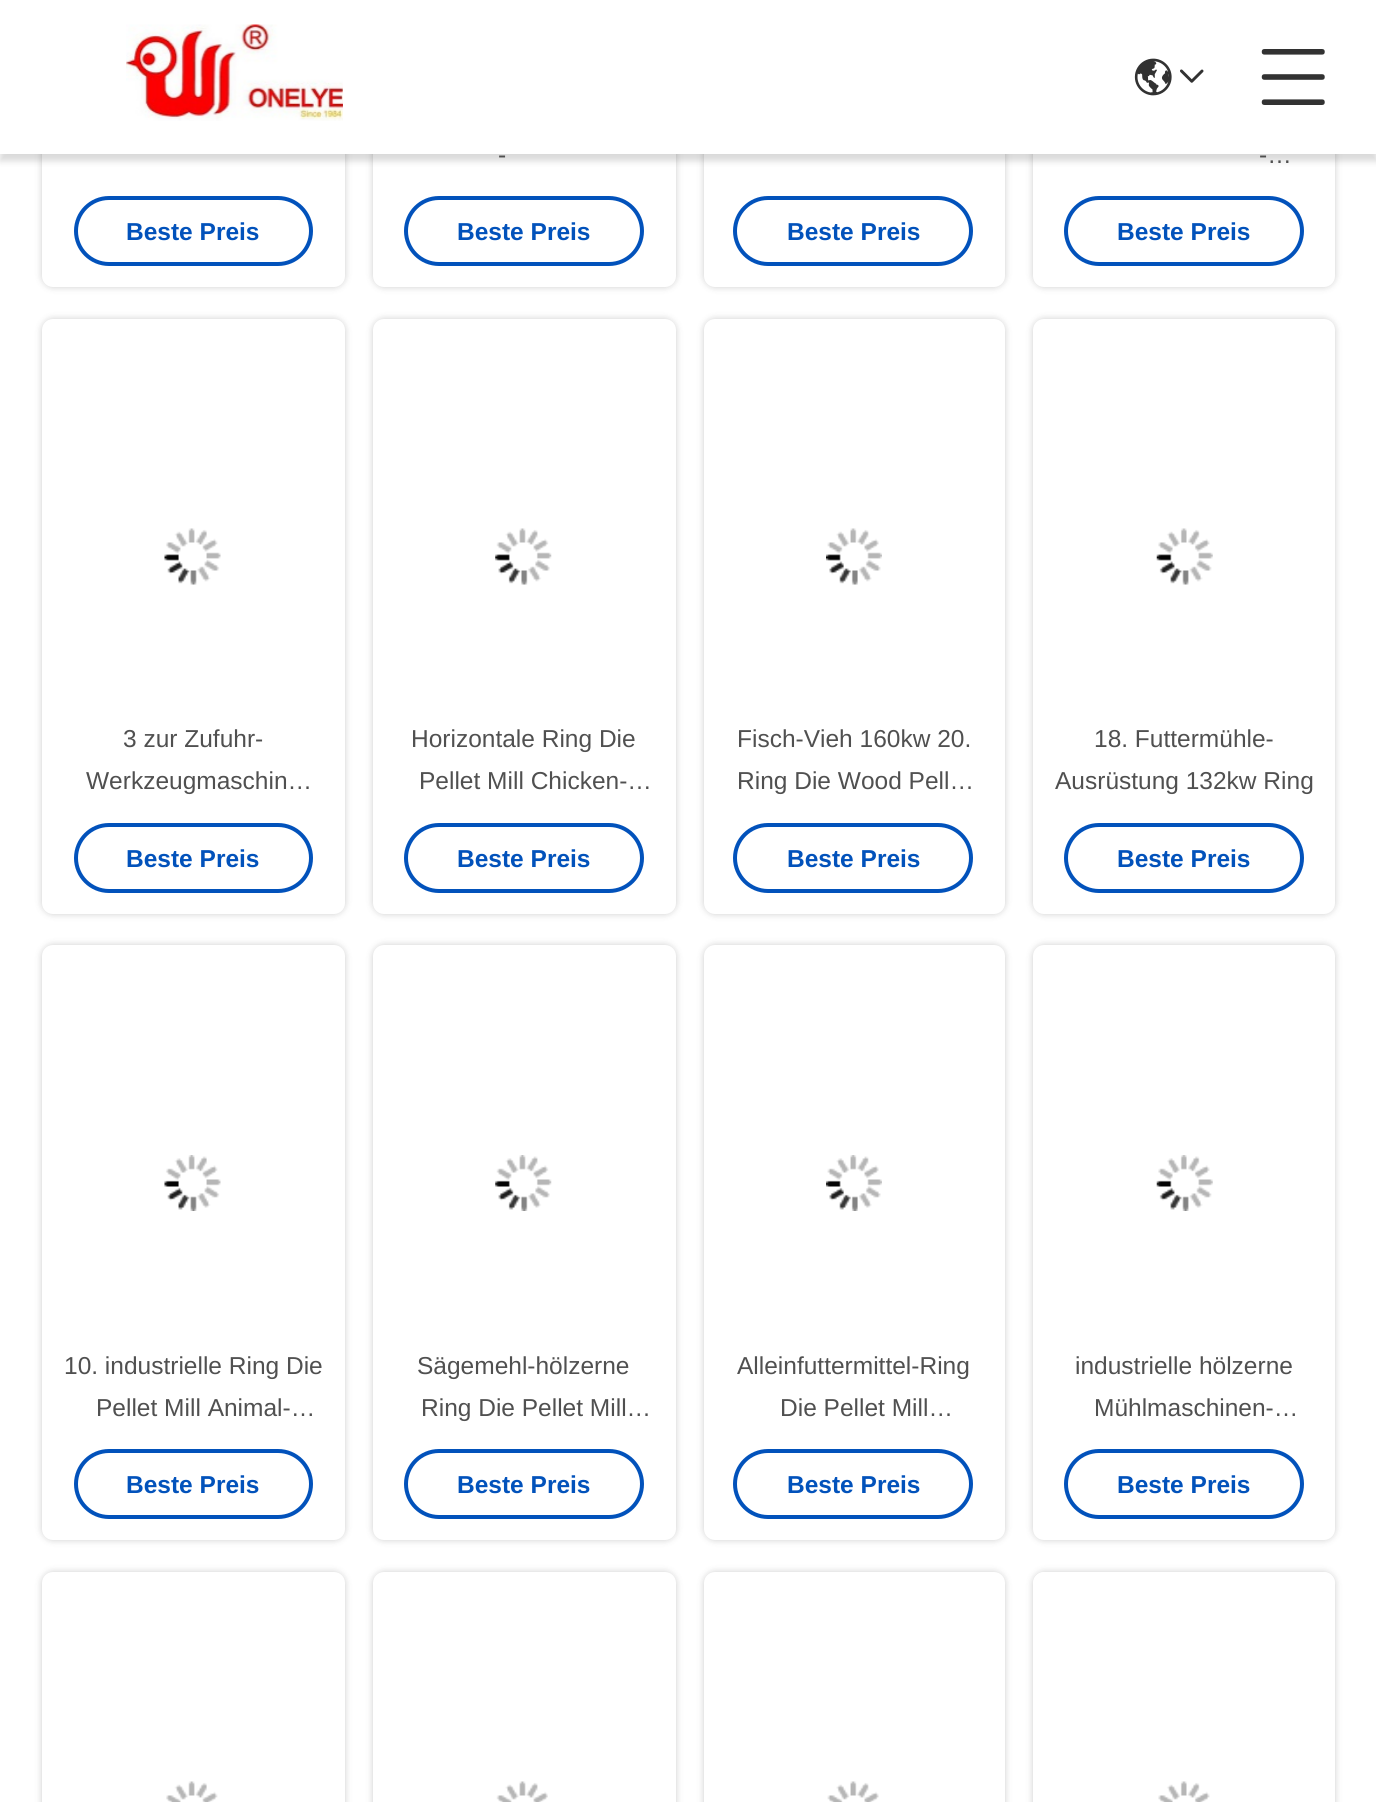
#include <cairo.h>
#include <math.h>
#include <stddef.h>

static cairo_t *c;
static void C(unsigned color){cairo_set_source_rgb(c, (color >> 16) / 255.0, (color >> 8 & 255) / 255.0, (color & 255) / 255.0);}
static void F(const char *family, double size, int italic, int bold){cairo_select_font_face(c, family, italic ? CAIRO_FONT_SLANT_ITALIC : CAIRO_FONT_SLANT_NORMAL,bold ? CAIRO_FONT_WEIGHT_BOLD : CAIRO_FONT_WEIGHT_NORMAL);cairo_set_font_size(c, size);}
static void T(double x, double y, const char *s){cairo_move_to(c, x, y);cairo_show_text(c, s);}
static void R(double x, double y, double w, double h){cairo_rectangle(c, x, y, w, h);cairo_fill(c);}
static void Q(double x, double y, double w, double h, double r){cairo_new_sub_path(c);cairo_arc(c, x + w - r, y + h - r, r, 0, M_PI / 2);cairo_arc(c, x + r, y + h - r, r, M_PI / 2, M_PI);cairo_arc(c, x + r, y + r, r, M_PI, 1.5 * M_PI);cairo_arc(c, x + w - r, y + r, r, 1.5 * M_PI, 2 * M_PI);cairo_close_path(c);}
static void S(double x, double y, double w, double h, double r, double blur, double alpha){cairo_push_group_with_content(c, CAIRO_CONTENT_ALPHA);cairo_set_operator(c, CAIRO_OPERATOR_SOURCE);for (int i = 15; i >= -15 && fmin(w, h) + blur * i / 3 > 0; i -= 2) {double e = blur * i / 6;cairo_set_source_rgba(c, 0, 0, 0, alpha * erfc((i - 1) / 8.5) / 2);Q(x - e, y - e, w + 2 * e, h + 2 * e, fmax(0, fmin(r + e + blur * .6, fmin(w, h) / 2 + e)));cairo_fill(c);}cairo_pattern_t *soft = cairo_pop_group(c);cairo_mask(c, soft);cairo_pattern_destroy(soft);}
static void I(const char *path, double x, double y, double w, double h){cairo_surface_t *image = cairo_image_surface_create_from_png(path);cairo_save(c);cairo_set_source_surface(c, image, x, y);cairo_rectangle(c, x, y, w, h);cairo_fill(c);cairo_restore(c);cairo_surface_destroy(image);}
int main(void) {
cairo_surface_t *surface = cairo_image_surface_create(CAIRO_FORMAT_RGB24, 1376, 1802);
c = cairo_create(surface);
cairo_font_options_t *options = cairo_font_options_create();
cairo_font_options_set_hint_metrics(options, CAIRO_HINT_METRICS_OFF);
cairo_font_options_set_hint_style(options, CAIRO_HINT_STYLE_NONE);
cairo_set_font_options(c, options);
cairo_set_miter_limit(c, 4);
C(0xffffff);
cairo_paint(c);
C(0x000000);
S(42,-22,303,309,11,3.5,.2);
C(0xffffff);
Q(42,-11,303,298,11);
cairo_fill(c);
C(0x000000);
S(373,-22,303,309,11,3.5,.2);
C(0xffffff);
Q(373,-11,303,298,11);
cairo_fill(c);
C(0x000000);
S(704,-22,301,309,11,3.5,.2);
C(0xffffff);
Q(704,-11,301,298,11);
cairo_fill(c);
C(0x000000);
S(1033,-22,302,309,11,3.5,.2);
C(0xffffff);
Q(1033,-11,302,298,11);
cairo_fill(c);
C(0x000000);
S(0,7,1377,154,0,3.5,.15);
C(0xffffff);
R(0,0,1376,154);
I("1.png",126,24,217,97);
I("2.png",1134,58,38,38);
I("3.png",1180,69,24,14);
I("4.png",1261,49,64,56);
Q(76,198,235,66,33);
C(0x0252bb);
cairo_set_line_width(c,4);
cairo_stroke(c);
F("Liberation Sans",24.5,0,1);
T(126,240,"Beste Preis");
F("Liberation Sans",24.5,0,0);
C(0x505050);
T(498,163,"-");
Q(406,198,236,66,33);
C(0x0252bb);
cairo_stroke(c);
F("Liberation Sans",24.5,0,1);
T(457,240,"Beste Preis");
Q(735,198,236,66,33);
cairo_stroke(c);
T(787,240,"Beste Preis");
F("Liberation Sans",24.5,0,0);
C(0x505050);
T(1259,163,"-…");
Q(1066,198,236,66,33);
C(0x0252bb);
cairo_stroke(c);
F("Liberation Sans",24.5,0,1);
T(1117,240,"Beste Preis");
C(0x000000);
S(42,319,303,595,11,3.5,.2);
C(0xffffff);
Q(42,319,303,595,11);
cairo_fill(c);
I("5.png",164,528,57,57);
F("Liberation Sans",24.5,0,0);
C(0x505050);
T(123,747,"3 zur Zufuhr-");
T(86,789,"Werkzeugmaschin…");
Q(76,825,235,66,33);
C(0x0252bb);
cairo_stroke(c);
F("Liberation Sans",24.5,0,1);
T(126,867,"Beste Preis");
C(0x000000);
S(373,319,303,595,11,3.5,.2);
C(0xffffff);
Q(373,319,303,595,11);
cairo_fill(c);
I("6.png",495,528,57,57);
F("Liberation Sans",24.5,0,0);
C(0x505050);
T(411,747,"Horizontale Ring Die");
T(419,789,"Pellet Mill Chicken-…");
Q(406,825,236,66,33);
C(0x0252bb);
cairo_stroke(c);
F("Liberation Sans",24.5,0,1);
T(457,867,"Beste Preis");
C(0x000000);
S(704,319,301,595,11,3.5,.2);
C(0xffffff);
Q(704,319,301,595,11);
cairo_fill(c);
I("7.png",826,528,56,57);
F("Liberation Sans",24.5,0,0);
C(0x505050);
T(737,747,"Fisch-Vieh 160kw 20.");
T(737,789,"Ring Die Wood Pell…");
Q(735,825,236,66,33);
C(0x0252bb);
cairo_stroke(c);
F("Liberation Sans",24.5,0,1);
T(787,867,"Beste Preis");
C(0x000000);
S(1033,319,302,595,11,3.5,.2);
C(0xffffff);
Q(1033,319,302,595,11);
cairo_fill(c);
I("8.png",1156,528,57,57);
F("Liberation Sans",24.5,0,0);
C(0x505050);
T(1094,747,"18. Futtermühle-");
T(1055,789,"Ausrüstung 132kw Ring");
Q(1066,825,236,66,33);
C(0x0252bb);
cairo_stroke(c);
F("Liberation Sans",24.5,0,1);
T(1117,867,"Beste Preis");
C(0x000000);
S(42,945,303,595,11,3.5,.2);
C(0xffffff);
Q(42,945,303,595,11);
cairo_fill(c);
I("9.png",164,1155,57,56);
F("Liberation Sans",24.5,0,0);
C(0x505050);
T(64,1374,"10. industrielle Ring Die");
T(96,1416,"Pellet Mill Animal-…");
Q(76,1451,235,66,33);
C(0x0252bb);
cairo_stroke(c);
F("Liberation Sans",24.5,0,1);
T(126,1493,"Beste Preis");
C(0x000000);
S(373,945,303,595,11,3.5,.2);
C(0xffffff);
Q(373,945,303,595,11);
cairo_fill(c);
I("10.png",495,1155,57,56);
F("Liberation Sans",24.5,0,0);
C(0x505050);
T(417,1374,"Sägemehl-hölzerne");
T(421,1416,"Ring Die Pellet Mill…");
Q(406,1451,236,66,33);
C(0x0252bb);
cairo_stroke(c);
F("Liberation Sans",24.5,0,1);
T(457,1493,"Beste Preis");
C(0x000000);
S(704,945,301,595,11,3.5,.2);
C(0xffffff);
Q(704,945,301,595,11);
cairo_fill(c);
I("11.png",826,1155,56,56);
F("Liberation Sans",24.5,0,0);
C(0x505050);
T(737,1374,"Alleinfuttermittel-Ring");
T(780,1416,"Die Pellet Mill…");
Q(735,1451,236,66,33);
C(0x0252bb);
cairo_stroke(c);
F("Liberation Sans",24.5,0,1);
T(787,1493,"Beste Preis");
C(0x000000);
S(1033,945,302,595,11,3.5,.2);
C(0xffffff);
Q(1033,945,302,595,11);
cairo_fill(c);
I("12.png",1156,1155,57,56);
F("Liberation Sans",24.5,0,0);
C(0x505050);
T(1075,1374,"industrielle hölzerne");
T(1094,1416,"Mühlmaschinen-…");
Q(1066,1451,236,66,33);
C(0x0252bb);
cairo_stroke(c);
F("Liberation Sans",24.5,0,1);
T(1117,1493,"Beste Preis");
C(0x000000);
S(42,1572,303,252,11,3.5,.2);
C(0xffffff);
Q(42,1572,303,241,11);
cairo_fill(c);
I("13.png",166,1781,52,21);
C(0x000000);
S(373,1572,303,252,11,3.5,.2);
C(0xffffff);
Q(373,1572,303,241,11);
cairo_fill(c);
I("14.png",496,1781,52,21);
C(0x000000);
S(704,1572,301,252,11,3.5,.2);
C(0xffffff);
Q(704,1572,301,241,11);
cairo_fill(c);
I("15.png",827,1781,52,21);
cairo_save(c);
cairo_set_fill_rule(c,CAIRO_FILL_RULE_EVEN_ODD);
cairo_new_path(c);
cairo_move_to(c,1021,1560);
cairo_line_to(c,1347,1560);
cairo_line_to(c,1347,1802);
cairo_line_to(c,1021,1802);
cairo_close_path(c);
cairo_move_to(c,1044,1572);
cairo_line_to(c,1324,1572);
cairo_curve_to(c,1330,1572,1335,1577,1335,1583);
cairo_line_to(c,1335,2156);
cairo_curve_to(c,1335,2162,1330,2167,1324,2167);
cairo_line_to(c,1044,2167);
cairo_curve_to(c,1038,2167,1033,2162,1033,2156);
cairo_line_to(c,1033,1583);
cairo_curve_to(c,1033,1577,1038,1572,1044,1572);
cairo_close_path(c);
cairo_clip(c);
C(0x000000);
S(1033,1572,302,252,11,3.5,.2);
cairo_restore(c);
I("16.png",1158,1781,52,21);
cairo_surface_write_to_png(surface, "o.png");
cairo_font_options_destroy(options);
cairo_destroy(c);
cairo_surface_destroy(surface);
return 0;
}
